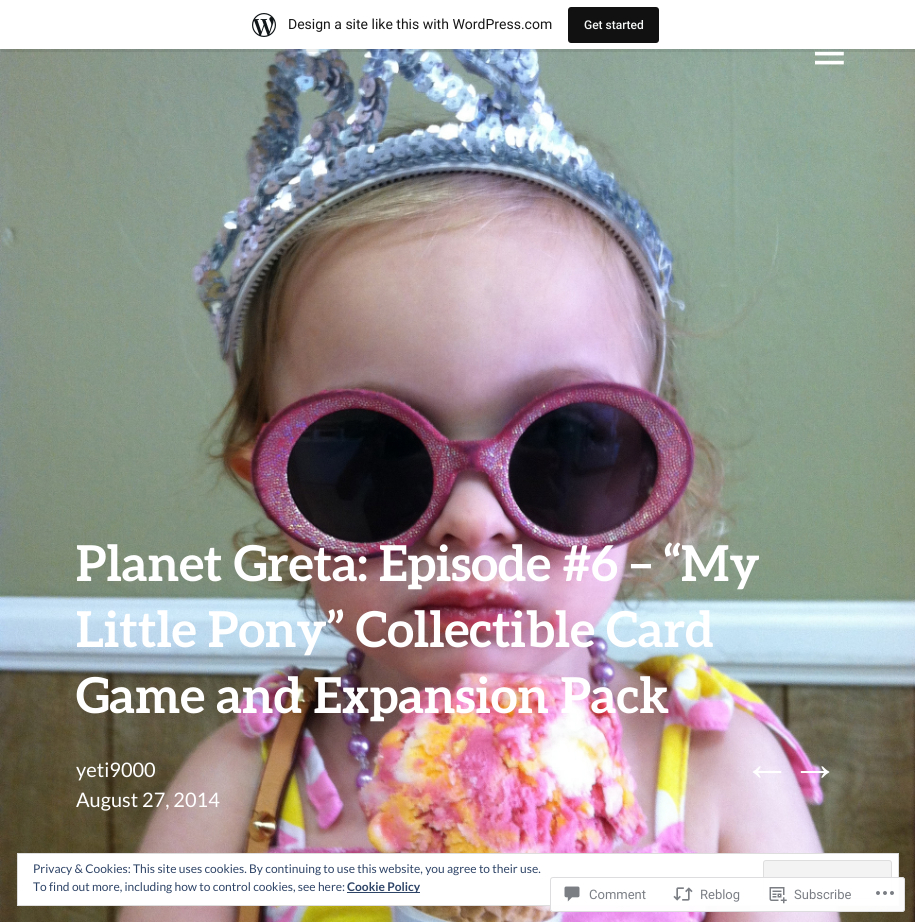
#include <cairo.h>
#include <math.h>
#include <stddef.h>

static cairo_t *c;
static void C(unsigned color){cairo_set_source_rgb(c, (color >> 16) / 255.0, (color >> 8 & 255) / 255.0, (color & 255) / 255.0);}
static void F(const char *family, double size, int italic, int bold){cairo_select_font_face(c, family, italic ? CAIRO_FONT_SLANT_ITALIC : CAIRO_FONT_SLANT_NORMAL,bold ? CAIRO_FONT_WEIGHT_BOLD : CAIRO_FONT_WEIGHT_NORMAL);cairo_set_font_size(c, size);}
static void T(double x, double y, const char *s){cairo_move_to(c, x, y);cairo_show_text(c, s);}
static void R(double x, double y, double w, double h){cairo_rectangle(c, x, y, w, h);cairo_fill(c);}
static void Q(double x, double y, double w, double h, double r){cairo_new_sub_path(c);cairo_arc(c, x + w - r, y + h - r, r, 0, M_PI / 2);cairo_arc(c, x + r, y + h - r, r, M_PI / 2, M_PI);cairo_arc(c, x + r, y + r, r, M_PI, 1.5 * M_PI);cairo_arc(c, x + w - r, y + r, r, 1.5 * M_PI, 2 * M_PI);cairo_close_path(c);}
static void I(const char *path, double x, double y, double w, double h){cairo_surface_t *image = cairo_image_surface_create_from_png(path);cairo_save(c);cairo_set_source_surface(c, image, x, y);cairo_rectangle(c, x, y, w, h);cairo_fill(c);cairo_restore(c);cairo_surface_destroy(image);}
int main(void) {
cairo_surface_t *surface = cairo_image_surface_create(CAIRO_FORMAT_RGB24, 915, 922);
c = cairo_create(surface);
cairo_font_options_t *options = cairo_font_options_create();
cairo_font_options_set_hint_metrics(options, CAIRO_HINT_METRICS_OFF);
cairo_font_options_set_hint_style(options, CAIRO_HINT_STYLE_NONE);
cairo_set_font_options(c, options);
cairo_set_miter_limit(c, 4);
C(0xffffff);
cairo_paint(c);
I("3.png",0,49,915,873);
cairo_set_source_rgba(c,0,0,0,0.08);
cairo_new_path(c);
cairo_move_to(c,1,49);
cairo_line_to(c,1,52);
cairo_line_to(c,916,52);
cairo_line_to(c,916,3);
cairo_line_to(c,915,3);
cairo_line_to(c,915,49);
cairo_close_path(c);
cairo_fill(c);
I("1.png",252,13,24,24);
F("Roboto",14,0,0);
C(0x171717);
T(288,29,"Design a site like this with WordPress.com");
C(0x111111);
Q(568,7,91,36,3);
cairo_fill(c);
F("Roboto Medium",12,0,0);
C(0xf6f7f7);
T(584,29,"Get started");
I("2.png",815,51,29,14);
F("Aleo",49.5,0,1);
C(0xffffff);
T(76,581,"Planet Greta: Episode #6 – “My");
T(76,647,"Little Pony” Collectible Card");
T(76,713,"Game and Expansion Pack");
F("Lato",20,0,0);
T(76,777,"yeti9000");
T(76,807,"August 27, 2014");
F("Liberation Sans",48,0,1);
T(743,780,"←→");
cairo_rectangle(c,17.5,853.5,881,52);
cairo_fill_preserve(c);
C(0xdedede);
cairo_set_line_width(c,1);
cairo_stroke(c);
F("Lato",12,0,0);
C(0x2e4467);
T(33,873,"Privacy & Cookies: This site uses cookies. By continuing to use this website, you agree to their use.");
C(0xf3f3f3);
Q(763.5,860.5,128,38,2.5);
cairo_fill_preserve(c);
C(0xdedede);
cairo_stroke(c);
C(0x2e4467);
T(33,891,"To find out more, including how to control cookies, see here:");
R(347,892,73,1);
F("Lato",12,0,1);
T(347,891,"Cookie Policy");
cairo_set_source_rgba(c,1,1,1,0.98);
Q(550,877,355,35,3);
cairo_fill(c);
Q(550.5,877.5,354,34,2.5);
cairo_set_source_rgba(c,0.863,0.863,0.871,0.98);
cairo_stroke(c);
I("4.png",564,886,16,16);
F("Roboto",13,0,0);
C(0x7b7f85);
T(589,899,"Comment");
I("5.png",673,887,20,14);
T(700,899,"Reblog");
I("6.png",769,887,18,17);
T(794,899,"Subscribe");
I("7.png",876,891,18,4);
cairo_surface_write_to_png(surface, "o.png");
cairo_font_options_destroy(options);
cairo_destroy(c);
cairo_surface_destroy(surface);
return 0;
}
